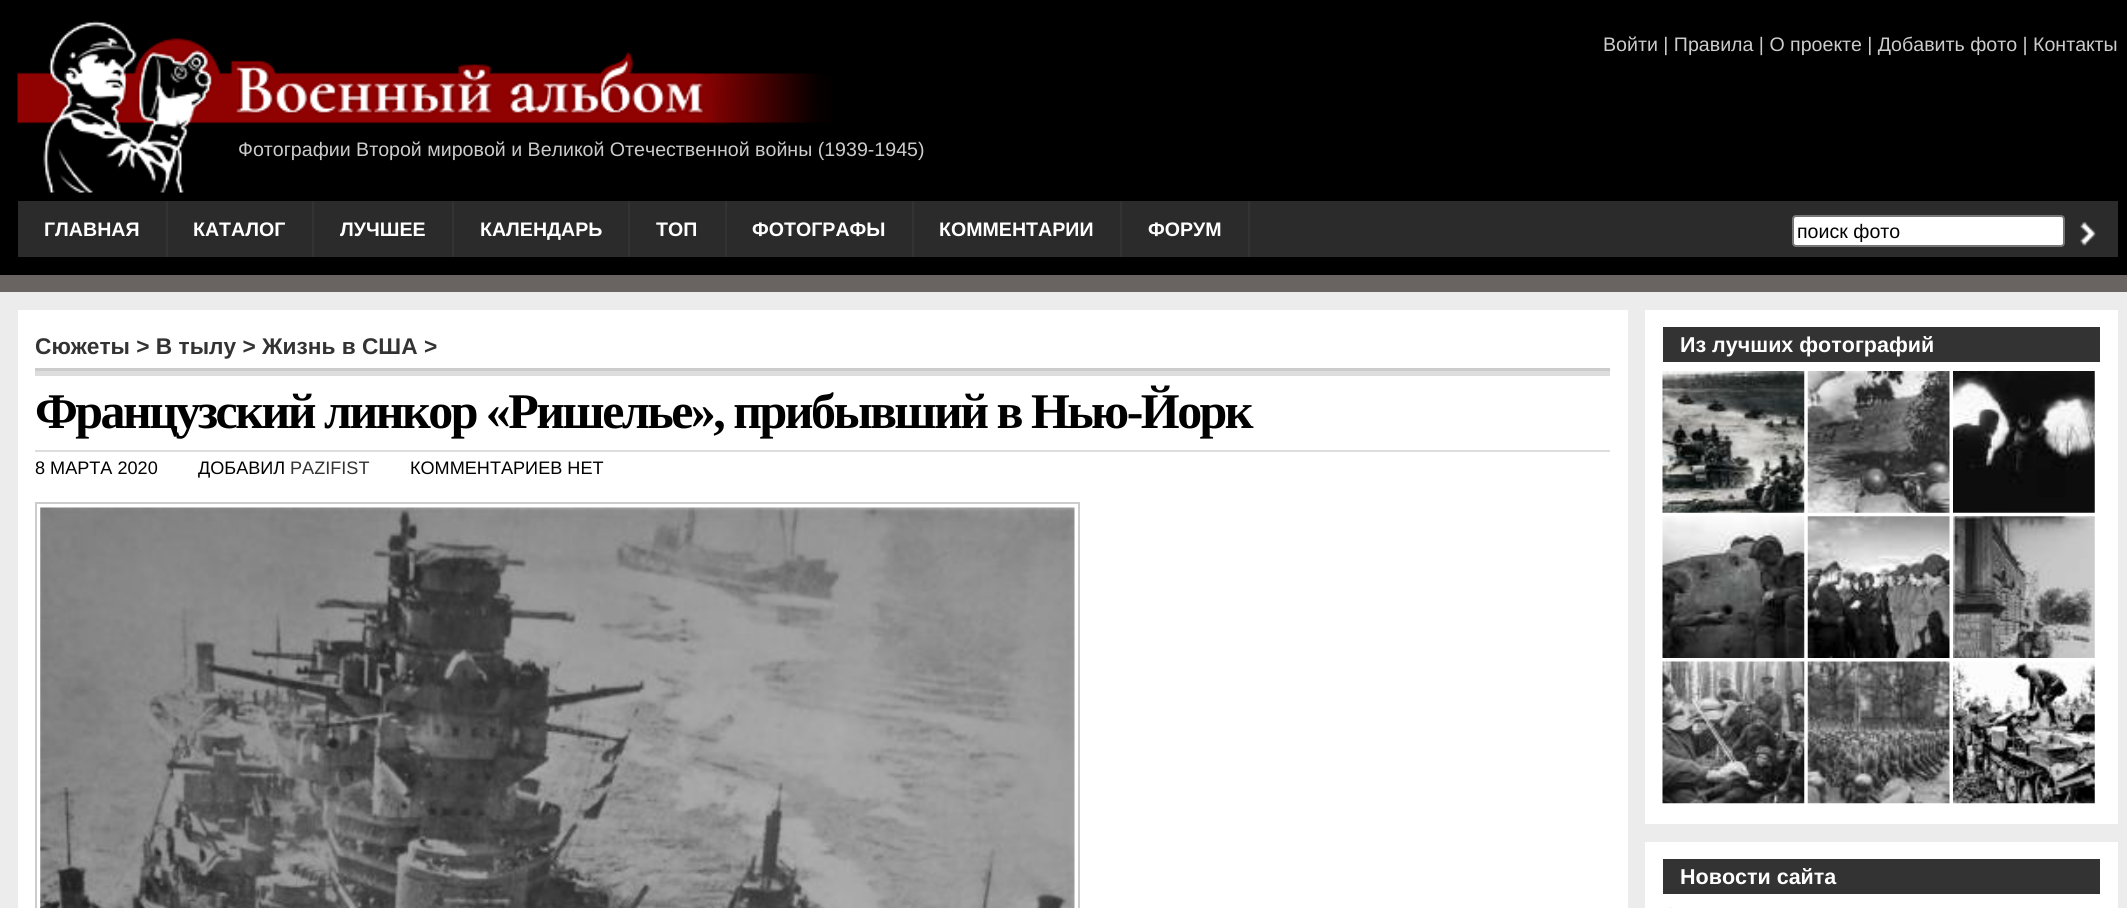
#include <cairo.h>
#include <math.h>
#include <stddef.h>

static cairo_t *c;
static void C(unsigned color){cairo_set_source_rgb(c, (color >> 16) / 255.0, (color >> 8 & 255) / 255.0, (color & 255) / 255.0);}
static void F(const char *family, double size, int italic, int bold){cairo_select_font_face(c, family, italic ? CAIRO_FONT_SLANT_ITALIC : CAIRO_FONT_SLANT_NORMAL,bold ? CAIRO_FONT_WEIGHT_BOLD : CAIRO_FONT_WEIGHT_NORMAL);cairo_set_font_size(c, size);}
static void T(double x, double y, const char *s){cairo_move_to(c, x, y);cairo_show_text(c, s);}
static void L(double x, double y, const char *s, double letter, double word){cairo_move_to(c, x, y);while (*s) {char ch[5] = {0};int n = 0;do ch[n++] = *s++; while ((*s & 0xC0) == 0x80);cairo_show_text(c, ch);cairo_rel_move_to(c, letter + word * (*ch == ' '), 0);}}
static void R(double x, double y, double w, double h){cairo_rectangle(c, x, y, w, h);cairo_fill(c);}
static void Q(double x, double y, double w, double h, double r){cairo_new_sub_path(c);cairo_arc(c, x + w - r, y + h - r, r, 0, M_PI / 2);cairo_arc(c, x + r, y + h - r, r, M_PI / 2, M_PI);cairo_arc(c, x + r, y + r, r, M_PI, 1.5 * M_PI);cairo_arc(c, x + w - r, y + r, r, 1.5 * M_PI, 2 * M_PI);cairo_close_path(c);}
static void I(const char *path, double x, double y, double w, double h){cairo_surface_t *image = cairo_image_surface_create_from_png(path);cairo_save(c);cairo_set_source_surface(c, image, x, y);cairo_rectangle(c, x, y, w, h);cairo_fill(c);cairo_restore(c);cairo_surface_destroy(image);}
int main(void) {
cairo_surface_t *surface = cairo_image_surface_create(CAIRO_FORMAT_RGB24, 2127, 908);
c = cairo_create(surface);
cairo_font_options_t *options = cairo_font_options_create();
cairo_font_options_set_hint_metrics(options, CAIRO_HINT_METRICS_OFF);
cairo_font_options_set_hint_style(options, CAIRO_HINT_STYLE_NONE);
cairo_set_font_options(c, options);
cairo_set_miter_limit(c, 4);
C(0x696462);
cairo_paint(c);
C(0x000000);
R(0,0,2127,275);
F("Liberation Sans",19.6,0,0);
C(0xcccccc);
T(1603,51,"Войти | Правила | О проекте | Добавить фото | Контакты");
I("1.png",17,20,814,173);
T(238,156,"Фотографии Второй мировой и Великой Отечественной войны (1939-1945)");
C(0x2b2b2b);
R(18,201,2100,56);
C(0x333333);
R(166,201,2,56);
F("Liberation Sans",19.6,0,1);
C(0xffffff);
T(44,236,"ГЛАВНАЯ");
C(0x333333);
R(312,201,2,56);
C(0xffffff);
T(193,236,"КАТАЛОГ");
C(0x333333);
R(452,201,2,56);
C(0xffffff);
T(340,236,"ЛУЧШЕЕ");
C(0x333333);
R(628,201,2,56);
C(0xffffff);
T(480,236,"КАЛЕНДАРЬ");
C(0x333333);
R(725,201,2,56);
C(0xffffff);
T(656,236,"ТОП");
C(0x333333);
R(912,201,2,56);
C(0xffffff);
T(752,236,"ФОТОГРАФЫ");
C(0x333333);
R(1120,201,2,56);
C(0xffffff);
T(939,236,"КОММЕНТАРИИ");
C(0x333333);
R(1248,201,2,56);
C(0xffffff);
T(1148,236,"ФОРУМ");
Q(1793,216,271,30,3);
cairo_fill_preserve(c);
C(0x767676);
cairo_stroke(c);
F("Liberation Sans",19.6,0,0);
C(0x000000);
T(1797,238,"поиск фото");
I("2.png",2080,221,16,25);
C(0xececec);
R(0,292,2127,616);
C(0xffffff);
R(18,310,1610,598);
C(0xcccccc);
R(35,368,1575,3);
F("Liberation Sans",22.7,0,1);
C(0x333333);
T(35,354,"Сюжеты > В тылу > Жизнь в США >");
C(0xdddddd);
R(35,371,1575,5);
R(35,450,1575,2);
F("Liberation Serif",49.9,0,1);
C(0x000000);
L(35,428,"Французский линкор «Ришелье», прибывший в Нью-Йорк",-2.5,0);
F("Liberation Sans",18.1,0,0);
T(35,474,"8 МАРТА 2020");
T(198,474,"ДОБАВИЛ");
C(0x333333);
T(290,474,"PAZIFIST");
C(0x000000);
T(410,474,"КОММЕНТАРИЕВ НЕТ");
cairo_rectangle(c,36,503,1043,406);
C(0xcccccc);
cairo_stroke(c);
I("3.png",40,507,1035,401);
C(0xffffff);
R(1645,310,473,514);
C(0x333333);
R(1663,327,437,35);
F("Liberation Sans",21.5,0,1);
C(0xffffff);
T(1680,352,"Из лучших фотографий");
I("4.png",1662,371,143,142);
I("5.png",1807,371,143,142);
I("6.png",1953,371,142,142);
I("7.png",1662,516,143,142);
I("8.png",1807,516,143,142);
I("9.png",1953,516,142,142);
I("10.png",1662,661,143,143);
I("11.png",1807,661,143,143);
I("12.png",1953,661,142,143);
R(1645,842,473,66);
C(0x333333);
R(1663,859,437,35);
C(0xffffff);
T(1680,884,"Новости сайта");
I("13.png",1669,907,3,1);
cairo_surface_write_to_png(surface, "o.png");
cairo_font_options_destroy(options);
cairo_destroy(c);
cairo_surface_destroy(surface);
return 0;
}
